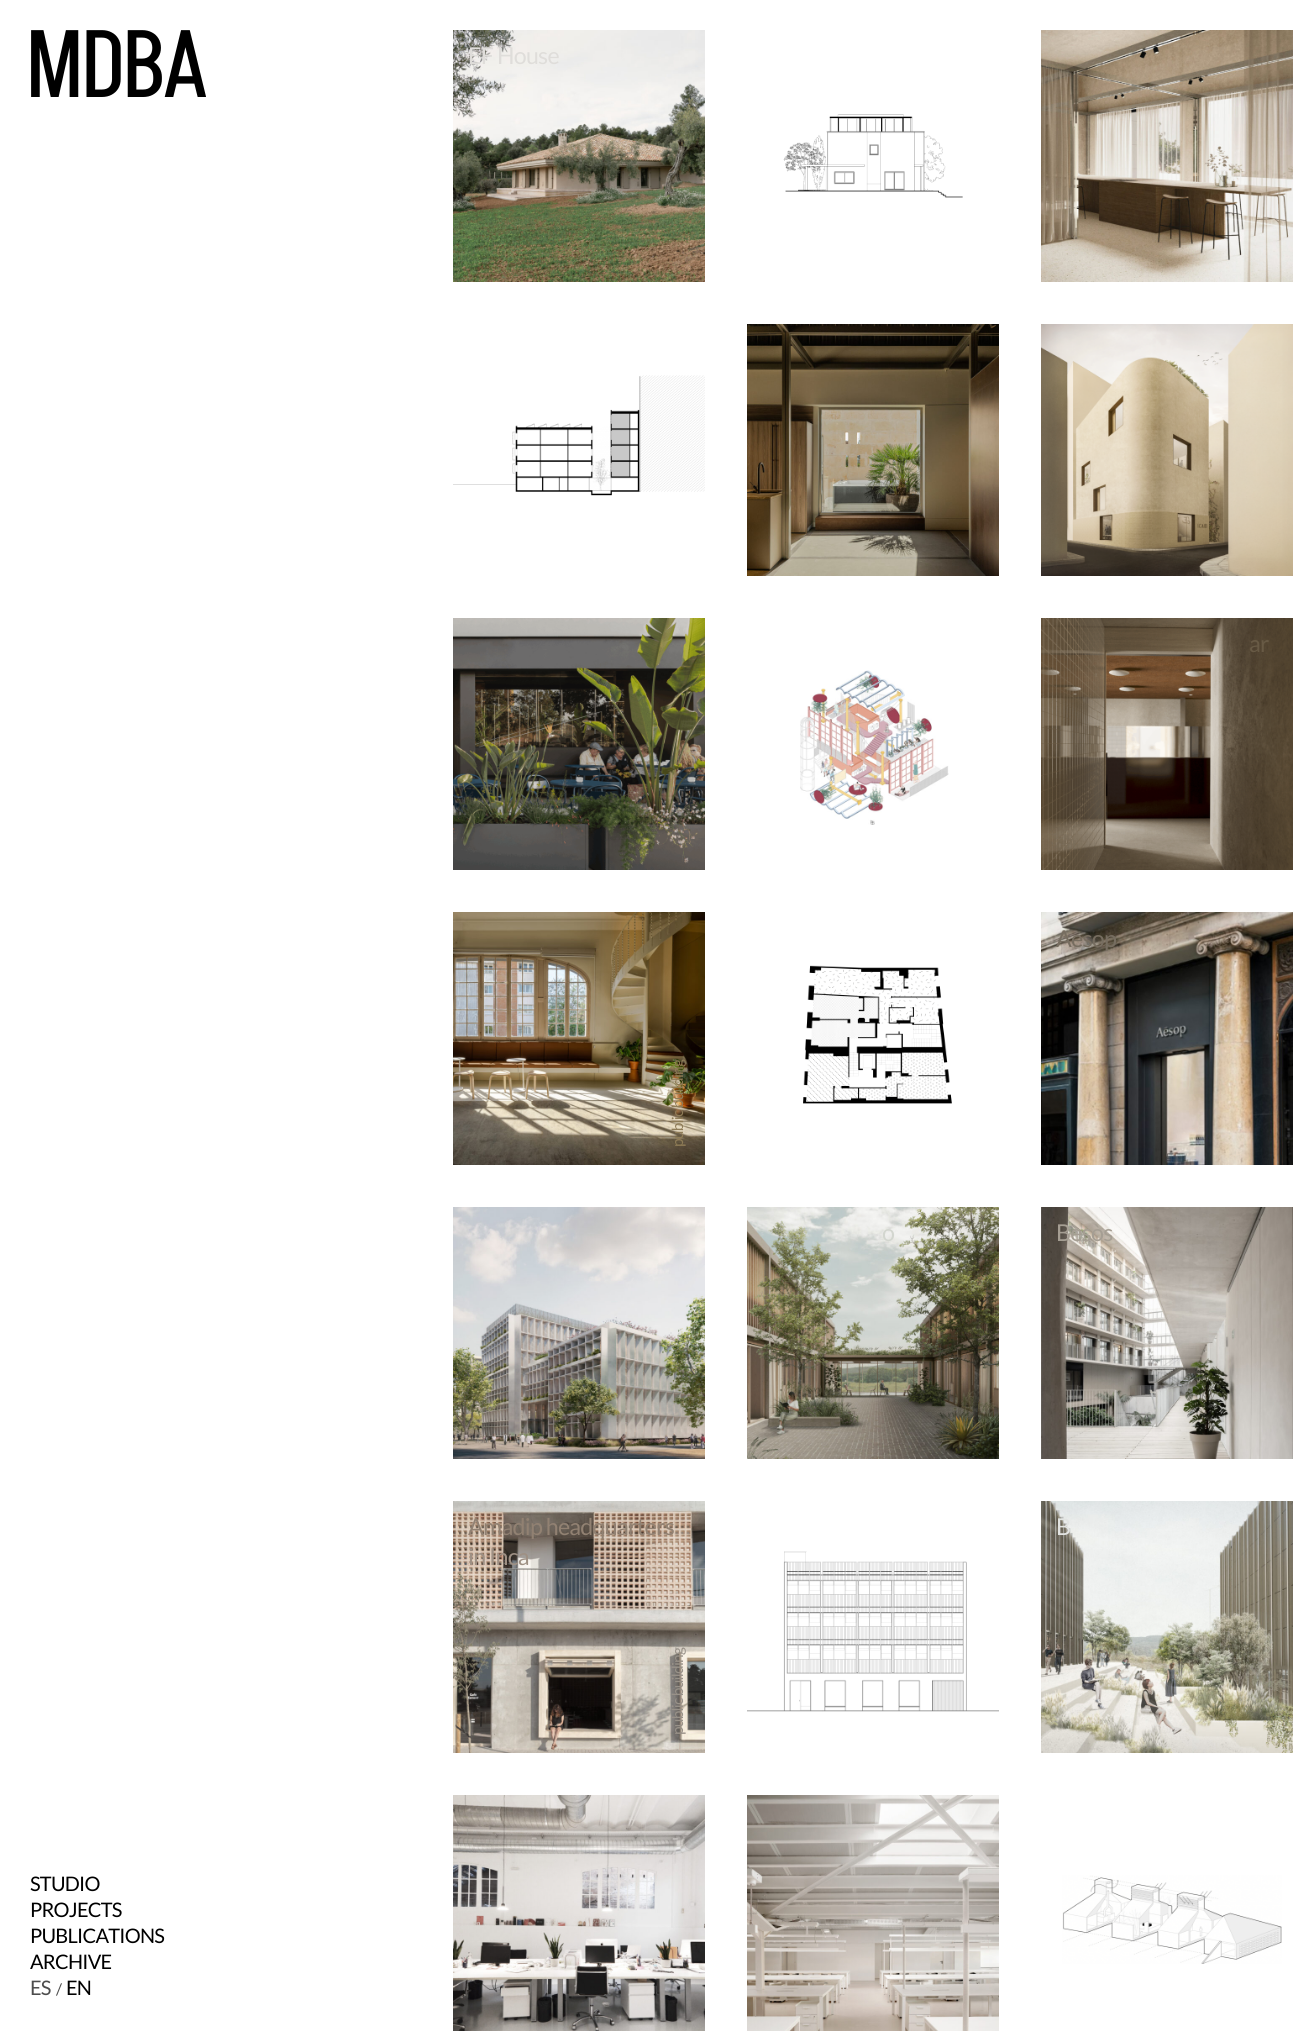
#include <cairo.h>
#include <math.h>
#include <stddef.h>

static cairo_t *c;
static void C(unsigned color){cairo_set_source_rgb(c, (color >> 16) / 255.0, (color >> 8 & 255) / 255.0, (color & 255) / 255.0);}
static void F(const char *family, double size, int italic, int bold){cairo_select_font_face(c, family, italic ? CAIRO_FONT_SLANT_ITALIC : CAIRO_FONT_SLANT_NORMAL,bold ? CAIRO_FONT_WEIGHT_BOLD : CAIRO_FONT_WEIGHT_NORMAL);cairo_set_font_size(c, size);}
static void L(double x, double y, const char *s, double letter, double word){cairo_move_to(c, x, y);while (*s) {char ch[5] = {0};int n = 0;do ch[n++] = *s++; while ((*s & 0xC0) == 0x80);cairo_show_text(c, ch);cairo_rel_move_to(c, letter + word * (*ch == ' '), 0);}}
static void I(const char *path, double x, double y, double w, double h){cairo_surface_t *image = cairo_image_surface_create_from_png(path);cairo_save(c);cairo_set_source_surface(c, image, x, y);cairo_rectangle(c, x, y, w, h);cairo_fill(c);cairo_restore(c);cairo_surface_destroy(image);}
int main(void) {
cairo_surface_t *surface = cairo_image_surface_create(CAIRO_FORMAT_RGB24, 1293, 2031);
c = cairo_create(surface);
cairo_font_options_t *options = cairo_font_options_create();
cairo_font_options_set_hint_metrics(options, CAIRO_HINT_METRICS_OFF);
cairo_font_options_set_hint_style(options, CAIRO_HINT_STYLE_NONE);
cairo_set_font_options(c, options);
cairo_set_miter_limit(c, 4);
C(0xffffff);
cairo_paint(c);
I("1.png",453,30,252,252);
F("Lato",23.25,0,0);
C(0xdfddda);
L(468,64,"EF House",-.75,0);
I("2.png",1041,30,252,252);
I("3.png",783,114,180,84);
I("4.png",453,375,252,121);
I("5.png",747,324,252,252);
I("6.png",1041,324,252,252);
I("7.png",453,618,252,252);
I("8.png",1041,618,252,252);
C(0x685a45);
L(1249,652,"ar",-.75,0);
I("9.png",800,670,149,155);
I("10.png",1041,912,252,253);
C(0x766d60);
L(1056,947,"Aesop",-.75,0);
I("11.png",453,912,252,253);
F("Lato",15.5,0,0);
C(0x8f7c57);
cairo_save(c);
cairo_translate(c,683,1147);
cairo_rotate(c,-90 * M_PI / 180);
L(0,0,"public building",-.75,0);
cairo_restore(c);
I("12.png",803,965,149,139);
I("13.png",453,1207,252,252);
I("14.png",747,1207,252,252);
F("Lato",23.25,0,0);
C(0xd3d6cf);
L(882,1241,"o",-.75,0);
I("15.png",1041,1207,252,252);
C(0xa59e93);
L(1056,1241,"Besòs",-.75,0);
I("16.png",453,1501,252,252);
C(0x918172);
L(468,1535,"Amadip headquarters",-.75,0);
C(0x9e9084);
L(468,1565,"in Inca",-.75,0);
F("Lato",15.5,0,0);
C(0x989188);
cairo_save(c);
cairo_translate(c,683,1735);
cairo_rotate(c,-90 * M_PI / 180);
L(0,0,"public building",-.75,0);
cairo_restore(c);
I("17.png",1041,1501,252,252);
F("Lato",23.25,0,0);
C(0xe2e4e2);
L(1056,1535,"B",-.75,0);
I("18.png",747,1551,252,161);
I("19.png",453,1795,252,236);
I("20.png",747,1795,252,236);
I("21.png",1062,1875,220,89);
I("22.png",31,30,175,67);
F("Lato",20,0,0);
C(0x000000);
L(30,1891,"STUDIO",-.75,0);
L(30,1917,"PROJECTS",-.75,0);
L(30,1943,"PUBLICATIONS",-.75,0);
L(30,1969,"ARCHIVE",-.75,0);
C(0x4d4d4d);
L(30,1995,"ES",-.75,0);
F("Lato",16,0,0);
L(56,1995,"/",-.75,0);
F("Lato",20,0,0);
C(0x000000);
L(66,1995,"EN",-.75,0);
cairo_surface_write_to_png(surface, "o.png");
cairo_font_options_destroy(options);
cairo_destroy(c);
cairo_surface_destroy(surface);
return 0;
}
